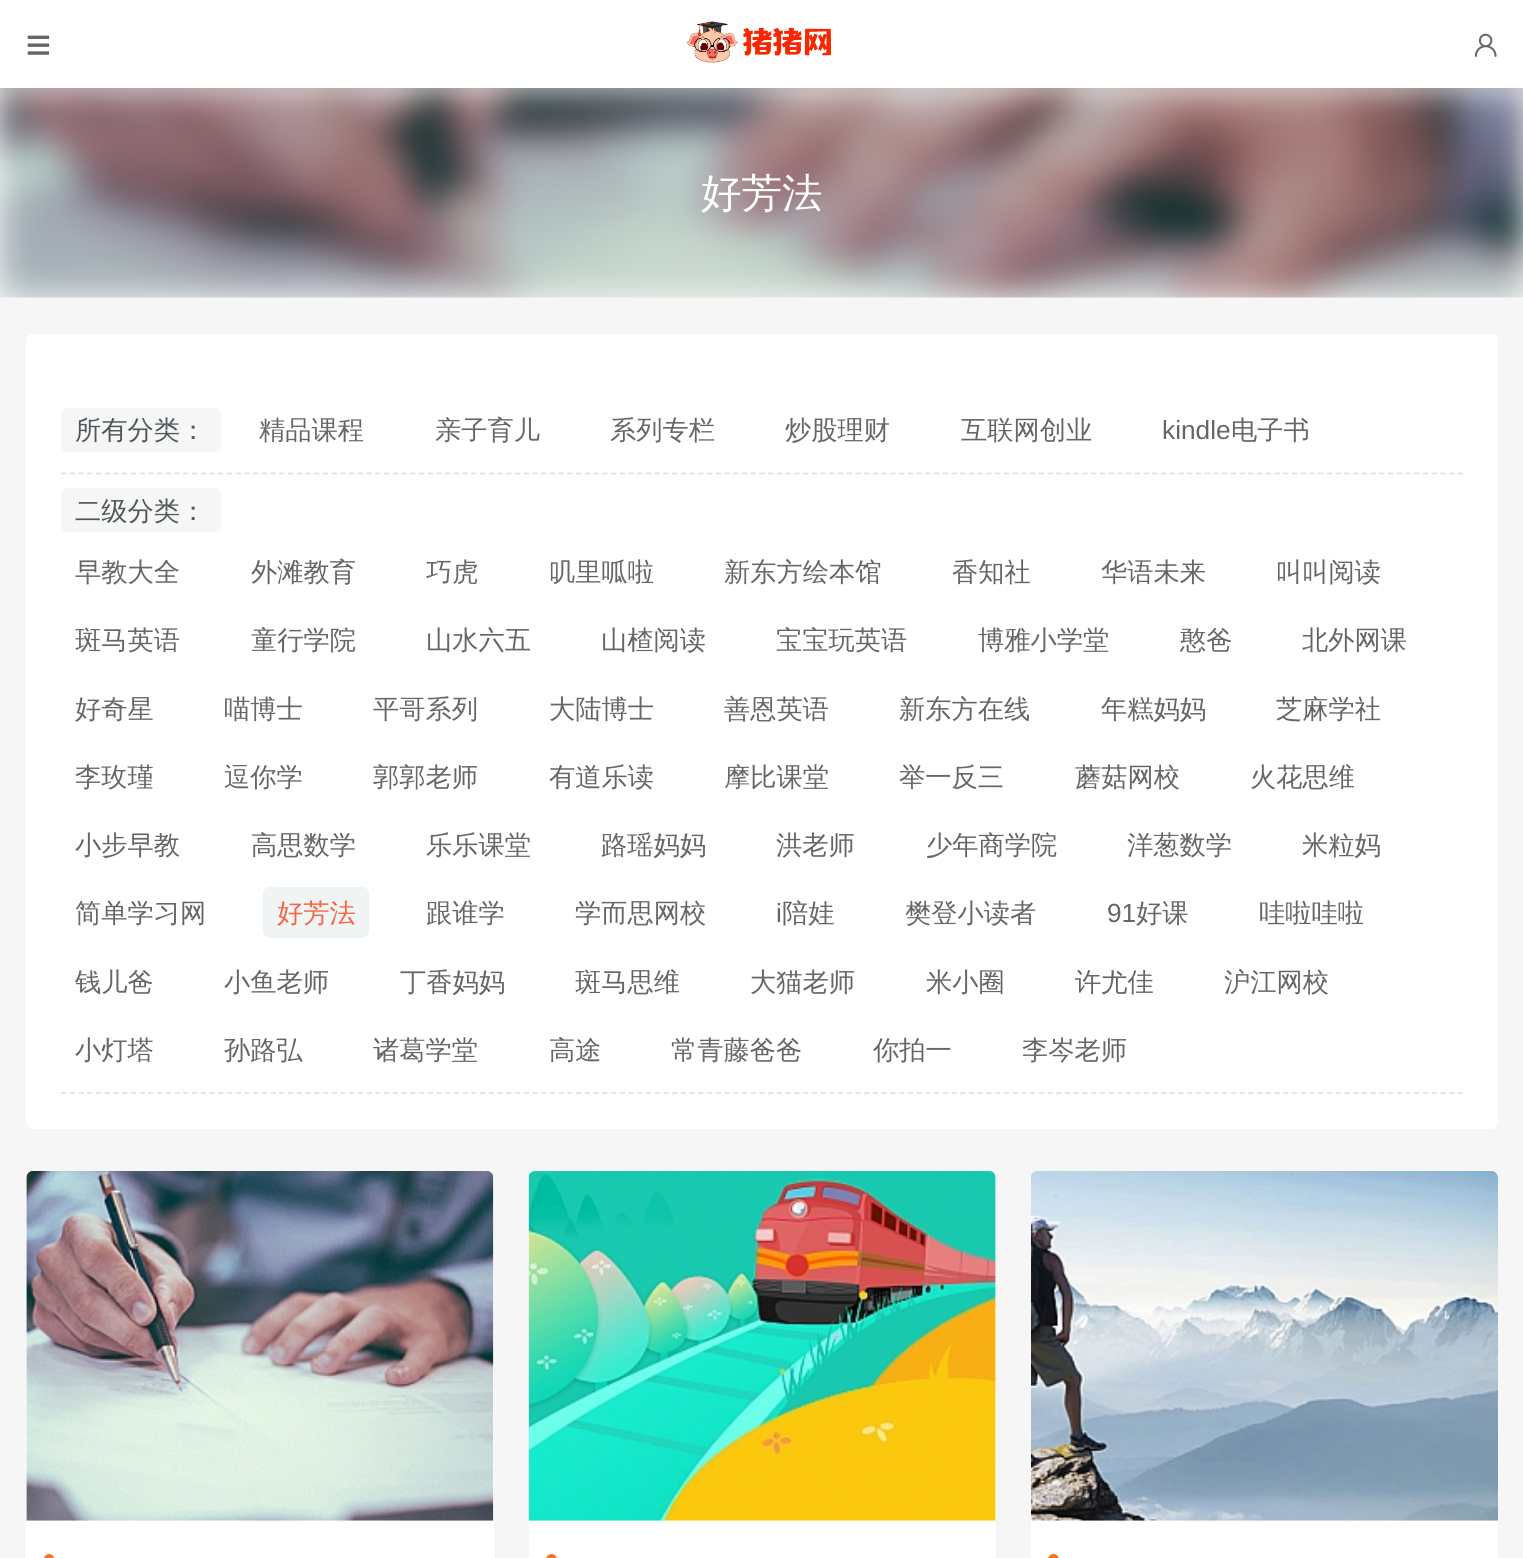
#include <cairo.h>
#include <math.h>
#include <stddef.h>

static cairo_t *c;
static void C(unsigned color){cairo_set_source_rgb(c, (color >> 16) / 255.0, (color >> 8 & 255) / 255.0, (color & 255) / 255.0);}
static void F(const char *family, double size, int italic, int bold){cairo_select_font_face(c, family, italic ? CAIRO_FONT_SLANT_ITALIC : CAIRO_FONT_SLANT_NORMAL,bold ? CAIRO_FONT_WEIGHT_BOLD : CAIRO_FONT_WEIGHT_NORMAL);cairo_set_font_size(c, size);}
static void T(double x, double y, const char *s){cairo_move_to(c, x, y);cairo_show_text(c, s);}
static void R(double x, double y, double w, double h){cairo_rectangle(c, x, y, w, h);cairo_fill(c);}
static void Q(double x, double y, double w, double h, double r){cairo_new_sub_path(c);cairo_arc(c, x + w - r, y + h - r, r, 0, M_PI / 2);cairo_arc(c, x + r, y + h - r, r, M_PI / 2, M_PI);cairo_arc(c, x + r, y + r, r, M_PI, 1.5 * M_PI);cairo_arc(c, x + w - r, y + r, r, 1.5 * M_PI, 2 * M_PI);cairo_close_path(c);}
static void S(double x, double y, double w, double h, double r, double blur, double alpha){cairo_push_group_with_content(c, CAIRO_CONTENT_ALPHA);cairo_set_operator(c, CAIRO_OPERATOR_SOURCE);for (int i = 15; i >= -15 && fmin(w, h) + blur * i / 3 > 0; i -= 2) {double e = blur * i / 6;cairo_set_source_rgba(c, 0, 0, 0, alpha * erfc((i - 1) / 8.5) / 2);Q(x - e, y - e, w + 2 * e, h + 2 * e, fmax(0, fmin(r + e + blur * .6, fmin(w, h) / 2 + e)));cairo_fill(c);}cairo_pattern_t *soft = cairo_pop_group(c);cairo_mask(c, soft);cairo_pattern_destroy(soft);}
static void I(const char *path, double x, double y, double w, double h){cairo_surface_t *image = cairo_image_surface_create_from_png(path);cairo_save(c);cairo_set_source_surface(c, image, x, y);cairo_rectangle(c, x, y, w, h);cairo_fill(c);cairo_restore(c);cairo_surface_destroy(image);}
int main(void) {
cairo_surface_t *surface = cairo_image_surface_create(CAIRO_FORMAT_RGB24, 1523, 1558);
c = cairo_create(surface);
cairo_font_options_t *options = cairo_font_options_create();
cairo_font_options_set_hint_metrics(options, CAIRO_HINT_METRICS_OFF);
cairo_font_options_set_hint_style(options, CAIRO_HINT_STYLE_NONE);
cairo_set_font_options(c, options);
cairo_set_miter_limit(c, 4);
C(0xf6f6f6);
cairo_paint(c);
I("4.png",0,88,1523,210);
C(0x000000);
S(0,4,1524,87,0,4.5,.07);
C(0xffffff);
R(0,0,1523,88);
I("1.png",27,35,23,20);
I("2.png",686,21,146,42);
I("3.png",1474,33,23,24);
F("WenQuanYi Zen Hei Medium",40.5,0,0);
T(701,207,"好芳法");
Q(26,334,1472,795,7);
cairo_fill(c);
cairo_new_path(c);
cairo_move_to(c,61,473.5);
cairo_line_to(c,1463,473.5);
C(0xe2e2e2);
cairo_set_line_width(c,1.8);
cairo_set_dash(c,(double[]){5.25,3.48},2,0);
cairo_stroke(c);
C(0xf6f6f6);
Q(61,408,160,44,7);
cairo_fill(c);
F("WenQuanYi Zen Hei Medium",26.25,0,0);
C(0x4e585a);
T(75,439,"所有分类：");
C(0x666666);
T(259,439,"精品课程");
T(435,439,"亲子育儿");
T(610,439,"系列专栏");
T(785,439,"炒股理财");
T(961,439,"互联网创业");
F("Liberation Sans",26.25,0,0);
T(1162,439,"kindle");
F("WenQuanYi Zen Hei Medium",26.25,0,0);
T(1231,439,"电子书");
cairo_new_path(c);
cairo_move_to(c,61,1093);
cairo_line_to(c,1463,1093);
C(0xe2e2e2);
cairo_stroke(c);
C(0xf6f6f6);
Q(61,488,160,44,7);
cairo_fill(c);
C(0x4e585a);
T(75,520,"二级分类：");
C(0x666666);
T(75,581,"早教大全");
T(251,581,"外滩教育");
T(426,581,"巧虎");
T(549,581,"叽里呱啦");
T(724,581,"新东方绘本馆");
T(952,581,"香知社");
T(1101,581,"华语未来");
T(1276,581,"叫叫阅读");
T(75,649,"斑马英语");
T(251,649,"童行学院");
T(426,649,"山水六五");
T(601,649,"山楂阅读");
T(776,649,"宝宝玩英语");
T(978,649,"博雅小学堂");
T(1180,649,"憨爸");
T(1302,649,"北外网课");
T(75,718,"好奇星");
T(224,718,"喵博士");
T(373,718,"平哥系列");
T(549,718,"大陆博士");
T(724,718,"善恩英语");
T(899,718,"新东方在线");
T(1101,718,"年糕妈妈");
T(1276,718,"芝麻学社");
T(75,786,"李玫瑾");
T(224,786,"逗你学");
T(373,786,"郭郭老师");
T(549,786,"有道乐读");
T(724,786,"摩比课堂");
T(899,786,"举一反三");
T(1075,786,"蘑菇网校");
T(1250,786,"火花思维");
T(75,854,"小步早教");
T(251,854,"高思数学");
T(426,854,"乐乐课堂");
T(601,854,"路瑶妈妈");
T(776,854,"洪老师");
T(926,854,"少年商学院");
T(1127,854,"洋葱数学");
T(1302,854,"米粒妈");
T(75,922,"简单学习网");
C(0xf0f4f5);
Q(263,887,106,51,7);
cairo_fill(c);
C(0xf86442);
T(277,922,"好芳法");
C(0x666666);
T(426,922,"跟谁学");
T(575,922,"学而思网校");
F("Liberation Sans",26.25,0,0);
T(776,922,"i");
F("WenQuanYi Zen Hei Medium",26.25,0,0);
T(782,922,"陪娃");
T(905,922,"樊登小读者");
F("Liberation Sans",26.25,0,0);
T(1107,922,"91");
F("WenQuanYi Zen Hei Medium",26.25,0,0);
T(1136,922,"好课");
T(1259,922,"哇啦哇啦");
T(75,991,"钱儿爸");
T(224,991,"小鱼老师");
T(400,991,"丁香妈妈");
T(575,991,"斑马思维");
T(750,991,"大猫老师");
T(926,991,"米小圈");
T(1075,991,"许尤佳");
T(1224,991,"沪江网校");
T(75,1059,"小灯塔");
T(224,1059,"孙路弘");
T(373,1059,"诸葛学堂");
T(549,1059,"高途");
T(671,1059,"常青藤爸爸");
T(873,1059,"你拍一");
T(1022,1059,"李岑老师");
C(0xffffff);
Q(26,1171,468,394,7);
cairo_fill(c);
I("5.png",26,1171,468,350);
C(0xfd721f);
Q(44,1554,10,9,5);
cairo_fill(c);
C(0xffffff);
Q(529,1171,467,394,7);
cairo_fill(c);
I("6.png",528,1171,468,350);
C(0xfd721f);
Q(546,1554,11,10,5.5);
cairo_fill(c);
C(0xffffff);
Q(1031,1171,467,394,7);
cairo_fill(c);
I("7.png",1031,1171,467,350);
C(0xfd721f);
Q(1048,1554,11,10,5.5);
cairo_fill(c);
cairo_surface_write_to_png(surface, "o.png");
cairo_font_options_destroy(options);
cairo_destroy(c);
cairo_surface_destroy(surface);
return 0;
}
